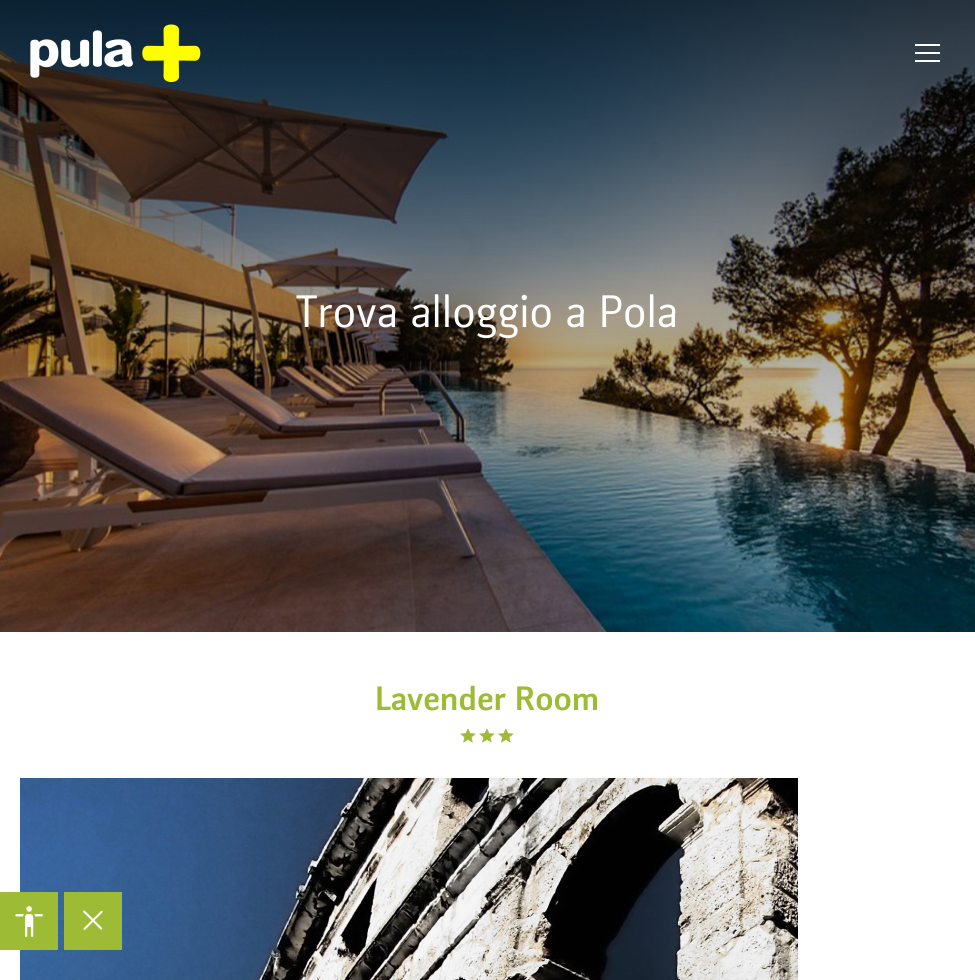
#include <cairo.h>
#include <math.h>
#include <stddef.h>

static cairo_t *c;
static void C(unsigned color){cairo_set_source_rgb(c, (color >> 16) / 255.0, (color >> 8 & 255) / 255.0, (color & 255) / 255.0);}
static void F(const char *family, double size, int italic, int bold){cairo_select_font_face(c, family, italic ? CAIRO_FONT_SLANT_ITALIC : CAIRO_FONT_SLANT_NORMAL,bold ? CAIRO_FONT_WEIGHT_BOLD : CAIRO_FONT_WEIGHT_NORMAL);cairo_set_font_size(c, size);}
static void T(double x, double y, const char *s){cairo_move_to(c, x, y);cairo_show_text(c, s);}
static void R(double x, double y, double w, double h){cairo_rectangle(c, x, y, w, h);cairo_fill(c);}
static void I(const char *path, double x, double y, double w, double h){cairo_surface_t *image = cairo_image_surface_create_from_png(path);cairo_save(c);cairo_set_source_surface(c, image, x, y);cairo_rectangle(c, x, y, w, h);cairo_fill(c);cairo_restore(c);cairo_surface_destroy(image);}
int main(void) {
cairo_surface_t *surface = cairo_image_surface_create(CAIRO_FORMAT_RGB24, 975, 980);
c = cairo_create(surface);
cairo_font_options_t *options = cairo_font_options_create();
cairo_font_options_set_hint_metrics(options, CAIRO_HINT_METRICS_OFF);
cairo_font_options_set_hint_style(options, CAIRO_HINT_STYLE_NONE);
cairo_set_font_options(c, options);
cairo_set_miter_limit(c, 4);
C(0xffffff);
cairo_paint(c);
I("2.png",0,0,975,632);
I("1.png",30,24,171,59);
C(0xffffff);
R(915,52,25,2);
R(915,44,25,2);
R(915,60,25,2);
F("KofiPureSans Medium",43,0,0);
T(296,327,"Trova alloggio a Pola");
F("KofiPureSans Black",32,0,0);
C(0x9ebb35);
T(375,710,"Lavender Room");
I("3.png",460,728,54,15);
I("4.png",20,778,778,202);
R(0,892,58,58);
I("5.png",15,906,28,31);
R(64,892,58,58);
I("6.png",83,910,20,20);
cairo_surface_write_to_png(surface, "o.png");
cairo_font_options_destroy(options);
cairo_destroy(c);
cairo_surface_destroy(surface);
return 0;
}
